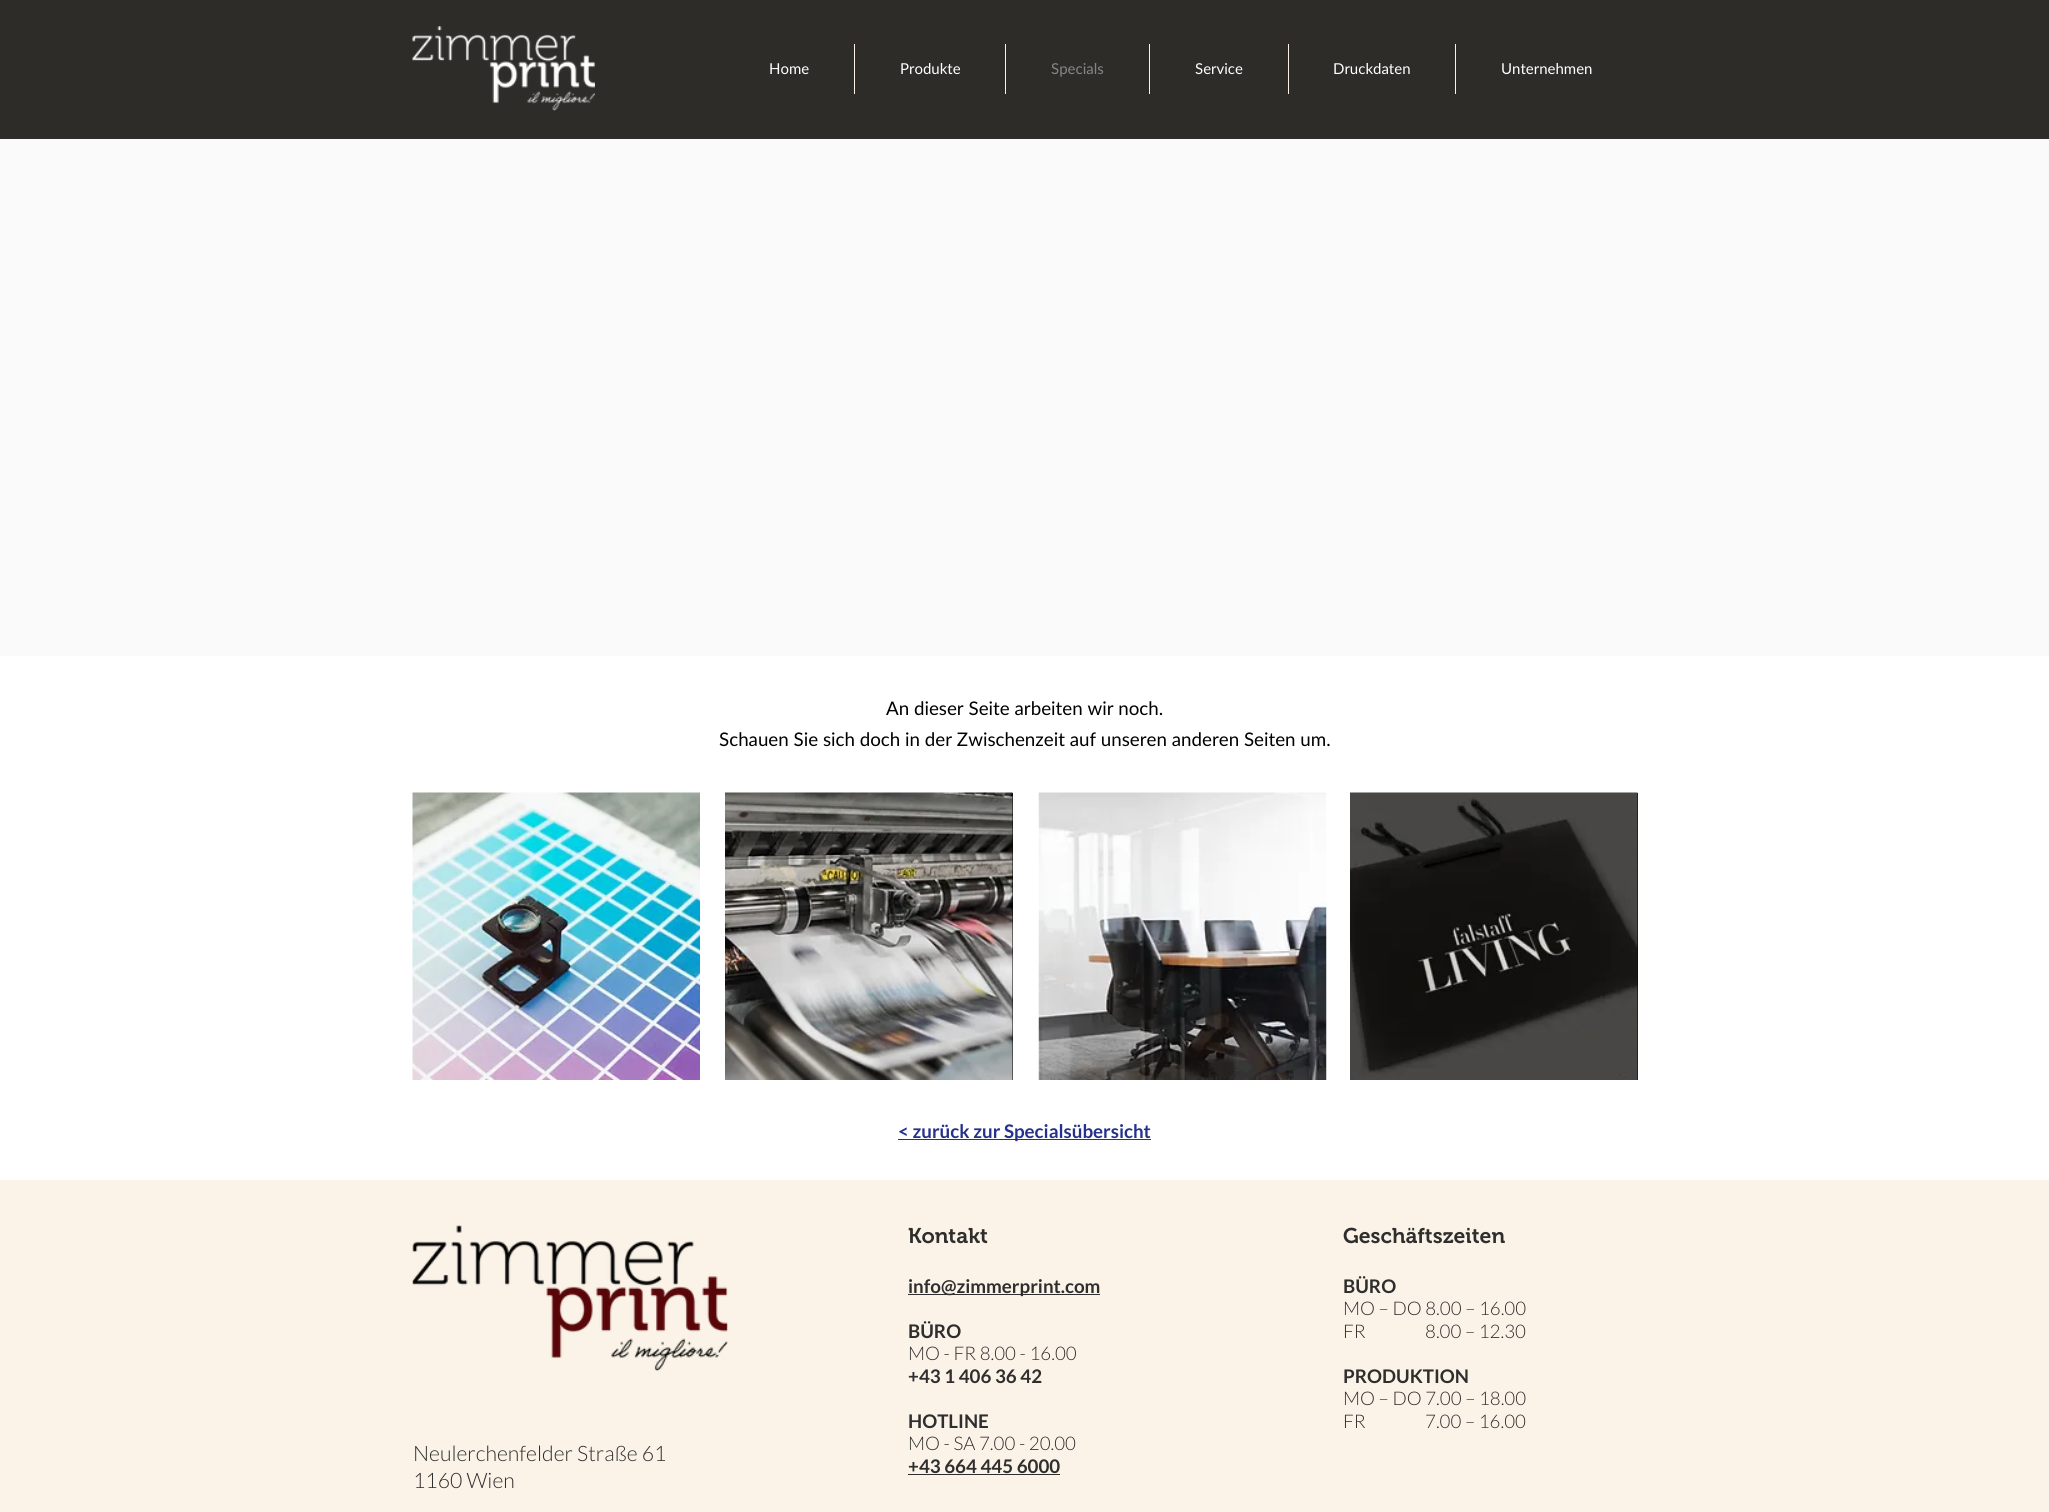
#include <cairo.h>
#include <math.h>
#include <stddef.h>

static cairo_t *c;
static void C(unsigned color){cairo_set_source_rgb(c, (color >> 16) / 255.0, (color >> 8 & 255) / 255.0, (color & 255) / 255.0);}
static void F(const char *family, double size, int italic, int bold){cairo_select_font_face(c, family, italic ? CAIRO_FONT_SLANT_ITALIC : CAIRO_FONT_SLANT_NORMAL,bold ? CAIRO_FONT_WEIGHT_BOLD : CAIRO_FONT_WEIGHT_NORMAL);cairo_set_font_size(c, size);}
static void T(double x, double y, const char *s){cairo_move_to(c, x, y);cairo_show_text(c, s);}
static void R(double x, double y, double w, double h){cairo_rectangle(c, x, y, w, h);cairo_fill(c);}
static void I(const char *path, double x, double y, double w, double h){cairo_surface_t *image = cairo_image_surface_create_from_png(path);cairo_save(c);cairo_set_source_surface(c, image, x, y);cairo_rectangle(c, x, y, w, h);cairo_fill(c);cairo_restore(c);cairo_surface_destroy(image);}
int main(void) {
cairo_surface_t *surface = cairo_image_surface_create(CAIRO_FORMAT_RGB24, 2049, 1512);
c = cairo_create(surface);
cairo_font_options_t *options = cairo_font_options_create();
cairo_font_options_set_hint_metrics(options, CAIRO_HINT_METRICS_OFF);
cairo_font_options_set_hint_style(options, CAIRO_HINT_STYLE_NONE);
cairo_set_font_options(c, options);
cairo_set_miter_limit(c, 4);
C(0xffffff);
cairo_paint(c);
C(0x2e2c29);
R(0,0,2049,139);
I("1.png",412,26,183,85);
F("Lato",15,0,0);
C(0xffffff);
T(769,74,"Home");
C(0xfbf3e8);
R(854,44,1,50);
C(0xffffff);
T(900,74,"Produkte");
C(0xfbf3e8);
R(1005,44,1,50);
C(0x858585);
T(1051,74,"Specials");
C(0xfbf3e8);
R(1149,44,1,50);
C(0xffffff);
T(1195,74,"Service");
C(0xfbf3e8);
R(1288,44,1,50);
C(0xffffff);
T(1333,74,"Druckdaten");
C(0xfbf3e8);
R(1455,44,1,50);
C(0xffffff);
T(1501,74,"Unternehmen");
C(0xfafafa);
R(0,139,2049,517);
F("Lato",18.75,0,0);
C(0x000000);
T(886,715,"An dieser Seite arbeiten wir noch.");
T(719,746,"Schauen Sie sich doch in der Zwischenzeit auf unseren anderen Seiten um.");
I("2.png",412,792,288,288);
R(1012,793,1,287);
I("3.png",725,792,288,288);
I("4.png",1038,792,289,288);
R(1637,793,1,287);
I("5.png",1350,792,288,288);
C(0x25318d);
R(898,1139,253,1);
F("Lato",18.75,0,1);
T(898,1138,"< zurück zur Specialsübersicht");
C(0xfbf3e8);
R(0,1180,2049,332);
I("6.png",412,1225,316,147);
F("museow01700 SemiBold",21.25,0,0);
C(0x2f2e2e);
T(908,1243,"Kontakt");
R(908,1294,192,1);
F("Lato",18.75,0,1);
T(908,1293,"info@zimmerprint.com");
T(908,1338,"BÜRO");
F("Lato Light",18.75,0,0);
T(908,1360,"MO - FR 8.00 - 16.00");
F("Lato",18.75,0,1);
T(908,1383,"+43 1 406 36 42");
T(908,1428,"HOTLINE");
F("Lato Light",18.75,0,0);
T(908,1450,"MO - SA 7.00 - 20.00");
F("Lato",18.75,0,1);
T(908,1473,"+43 664 445 6000");
R(908,1474,152,1);
F("museow01700 SemiBold",21.25,0,0);
T(1343,1243,"Geschäftszeiten");
F("Lato",18.75,0,1);
T(1343,1293,"BÜRO");
F("Lato Light",18.75,0,0);
T(1343,1315,"MO – DO 8.00 – 16.00");
T(1343,1338,"FR");
T(1425,1338,"8.00 – 12.30");
F("Lato",18.75,0,1);
T(1343,1383,"PRODUKTION");
F("Lato Light",18.75,0,0);
T(1343,1405,"MO – DO 7.00 – 18.00");
T(1343,1428,"FR");
T(1425,1428,"7.00 – 16.00");
F("Lato Light",21.25,0,0);
T(413,1461,"Neulerchenfelder Straße 61");
T(413,1488,"1160 Wien");
cairo_surface_write_to_png(surface, "o.png");
cairo_font_options_destroy(options);
cairo_destroy(c);
cairo_surface_destroy(surface);
return 0;
}
